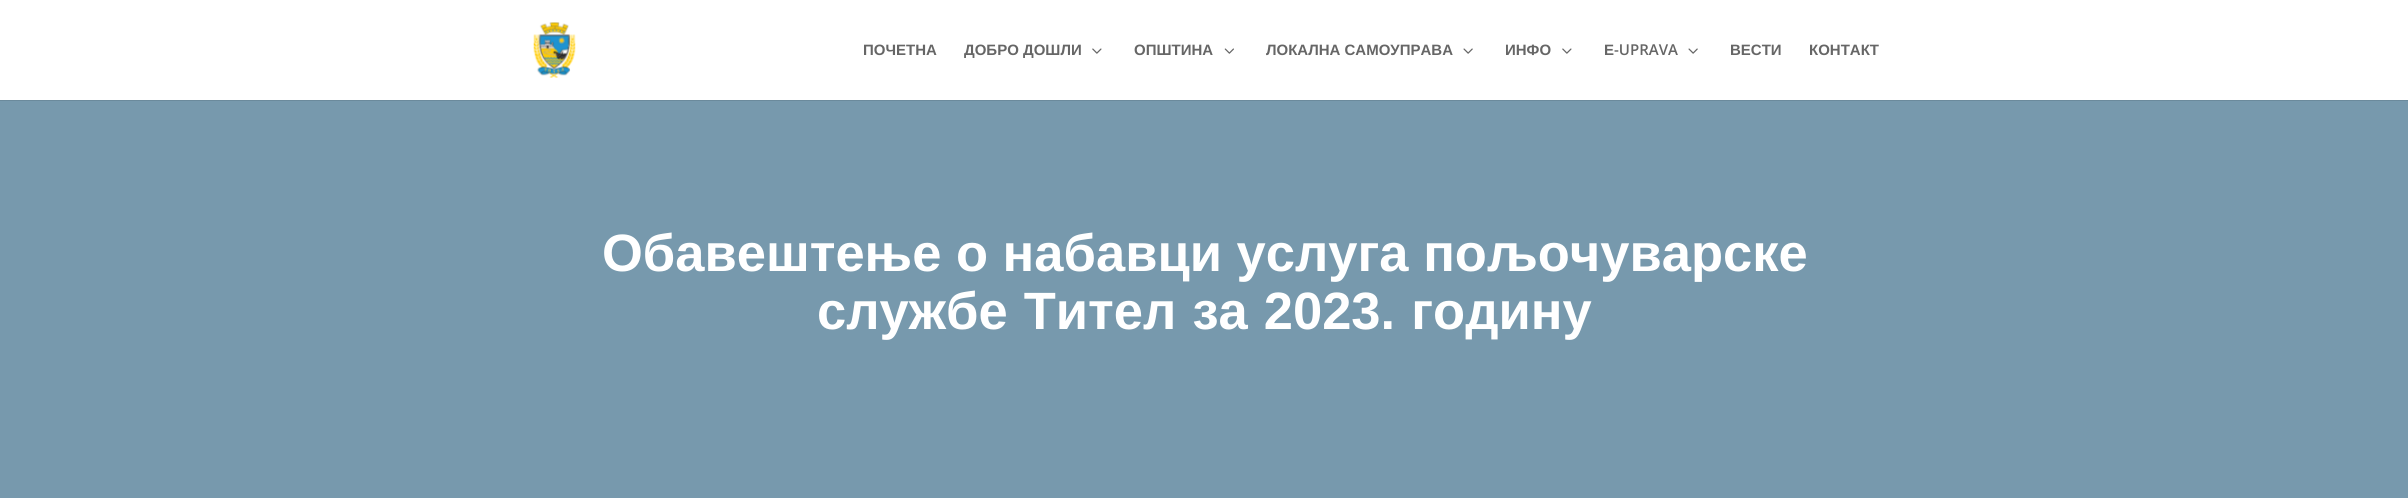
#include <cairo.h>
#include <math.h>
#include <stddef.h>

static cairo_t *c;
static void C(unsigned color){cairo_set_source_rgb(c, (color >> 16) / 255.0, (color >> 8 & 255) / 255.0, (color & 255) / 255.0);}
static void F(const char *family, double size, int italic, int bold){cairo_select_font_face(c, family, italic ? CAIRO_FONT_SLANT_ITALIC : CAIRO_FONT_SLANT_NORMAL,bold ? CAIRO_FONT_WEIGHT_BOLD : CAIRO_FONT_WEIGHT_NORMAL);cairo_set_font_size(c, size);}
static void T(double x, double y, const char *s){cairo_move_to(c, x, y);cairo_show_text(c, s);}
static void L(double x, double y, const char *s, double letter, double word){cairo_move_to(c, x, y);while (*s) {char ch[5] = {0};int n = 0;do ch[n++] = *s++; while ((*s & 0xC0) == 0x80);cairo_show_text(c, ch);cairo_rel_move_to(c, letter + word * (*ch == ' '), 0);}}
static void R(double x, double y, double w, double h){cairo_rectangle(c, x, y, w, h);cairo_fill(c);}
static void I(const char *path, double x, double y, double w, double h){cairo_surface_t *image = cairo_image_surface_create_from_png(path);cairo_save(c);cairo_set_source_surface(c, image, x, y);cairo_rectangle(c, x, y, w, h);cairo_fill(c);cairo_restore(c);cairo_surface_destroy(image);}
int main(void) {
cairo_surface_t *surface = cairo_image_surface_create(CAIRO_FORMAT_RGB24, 2408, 498);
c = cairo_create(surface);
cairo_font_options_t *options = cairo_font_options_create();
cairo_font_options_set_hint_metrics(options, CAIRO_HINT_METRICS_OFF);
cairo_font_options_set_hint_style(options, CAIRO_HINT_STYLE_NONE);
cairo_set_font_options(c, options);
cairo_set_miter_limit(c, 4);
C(0x7799ad);
cairo_paint(c);
C(0x6b8a9c);
cairo_new_path(c);
cairo_move_to(c,0,100);
cairo_line_to(c,0,101);
cairo_line_to(c,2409,101);
cairo_line_to(c,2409,1);
cairo_line_to(c,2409,100);
cairo_close_path(c);
cairo_fill(c);
C(0xffffff);
R(0,0,2408,100);
I("1.png",533,22,43,56);
F("Liberation Sans",15,0,1);
C(0x666666);
T(863,55,"ПОЧЕТНА");
T(964,55,"ДОБРО ДОШЛИ");
I("2.png",1092,48,10,6);
T(1134,55,"ОПШТИНА");
I("3.png",1224,48,10,6);
T(1266,55,"ЛОКАЛНА САМОУПРАВА");
I("4.png",1463,48,10,6);
T(1505,55,"ИНФО");
I("2.png",1562,48,10,6);
T(1604,55,"Е");
F("Open Sans SemiBold",15,0,0);
T(1614,55,"-UPRAVA");
I("4.png",1688,48,10,6);
F("Liberation Sans",15,0,1);
T(1730,55,"ВЕСТИ");
T(1809,55,"КОНТАКТ");
F("Liberation Sans",52.5,0,1);
C(0xffffff);
T(602,271,"Обавештење о набавци услуга пољочуварске");
L(817,329,"службе Тител за 2023. годину",0,1.5);
cairo_surface_write_to_png(surface, "o.png");
cairo_font_options_destroy(options);
cairo_destroy(c);
cairo_surface_destroy(surface);
return 0;
}
